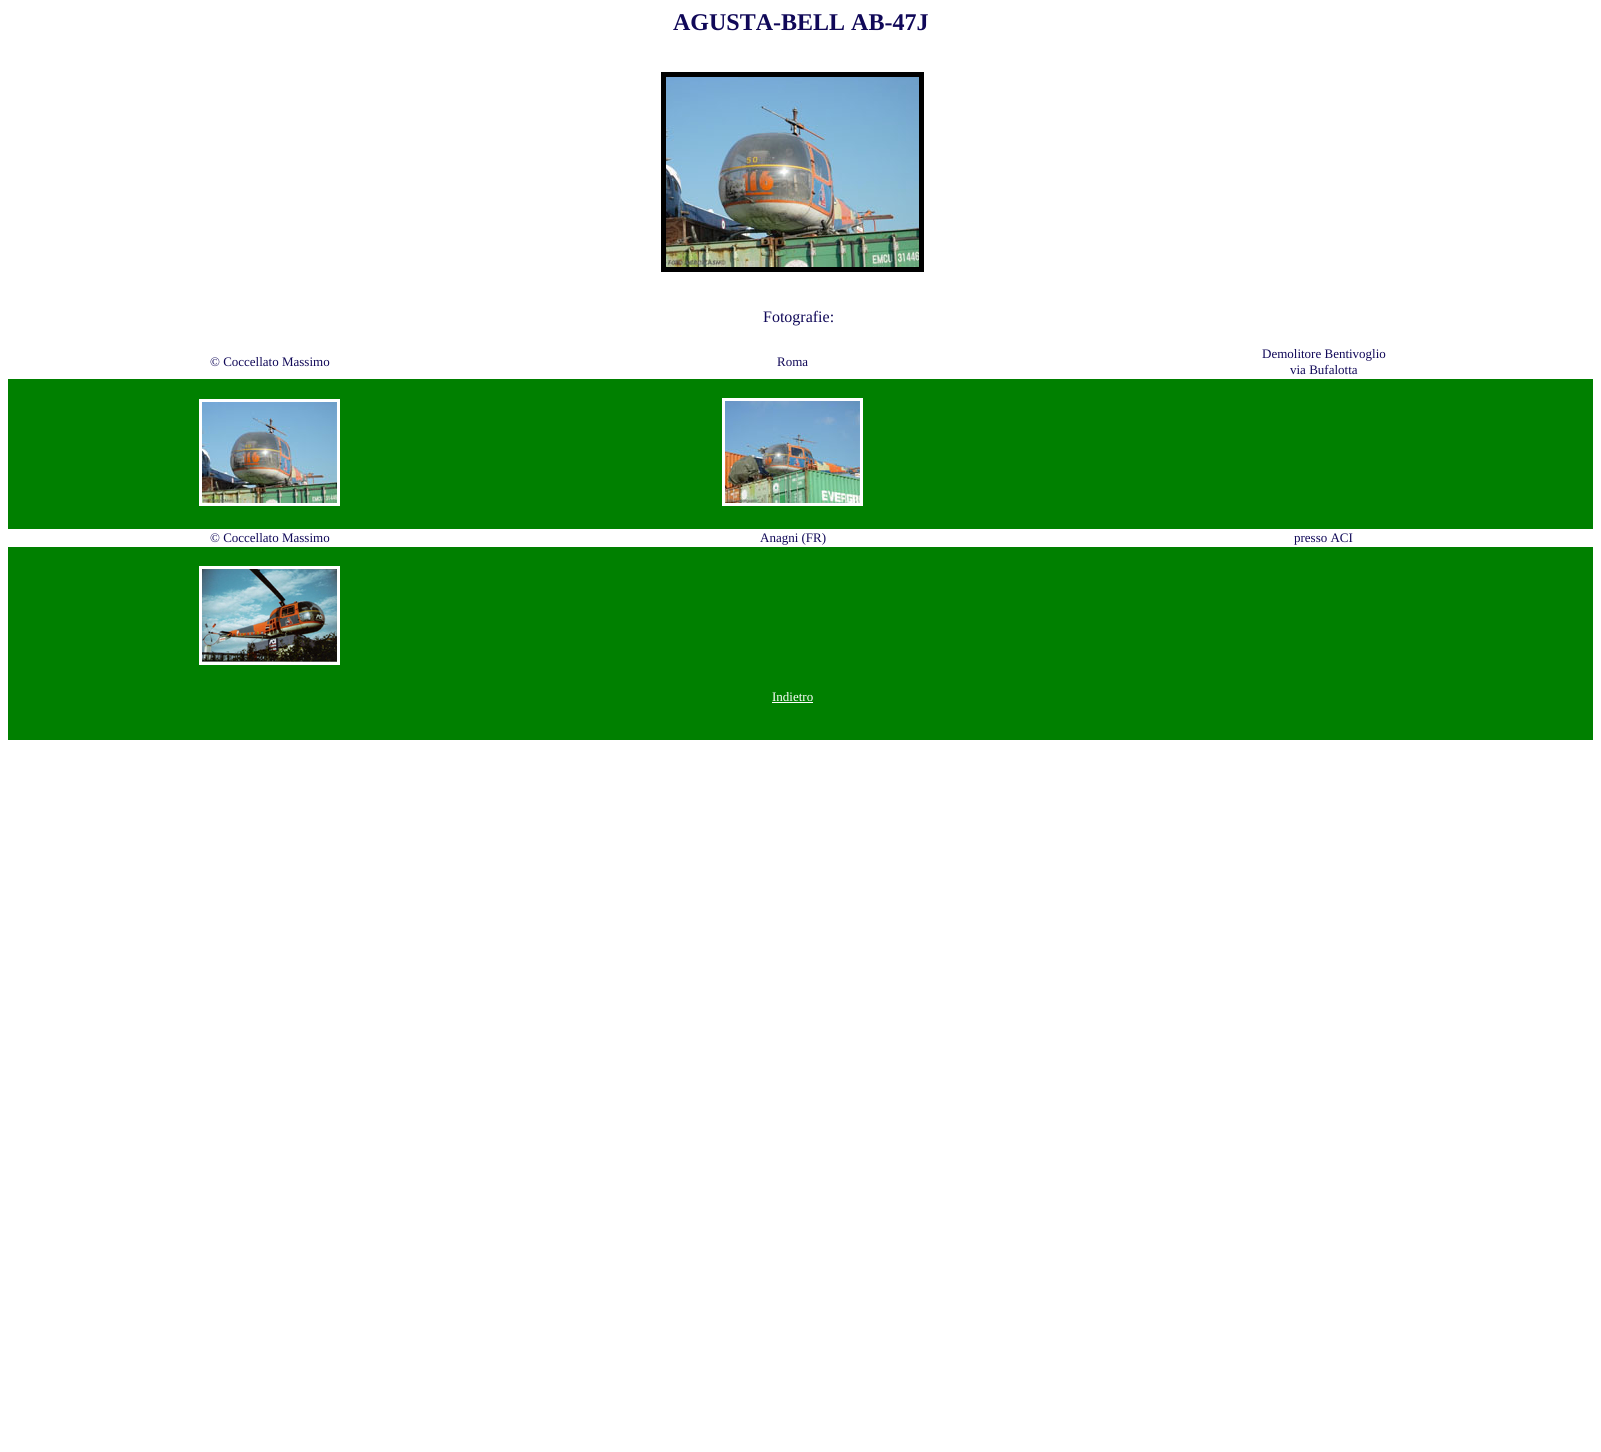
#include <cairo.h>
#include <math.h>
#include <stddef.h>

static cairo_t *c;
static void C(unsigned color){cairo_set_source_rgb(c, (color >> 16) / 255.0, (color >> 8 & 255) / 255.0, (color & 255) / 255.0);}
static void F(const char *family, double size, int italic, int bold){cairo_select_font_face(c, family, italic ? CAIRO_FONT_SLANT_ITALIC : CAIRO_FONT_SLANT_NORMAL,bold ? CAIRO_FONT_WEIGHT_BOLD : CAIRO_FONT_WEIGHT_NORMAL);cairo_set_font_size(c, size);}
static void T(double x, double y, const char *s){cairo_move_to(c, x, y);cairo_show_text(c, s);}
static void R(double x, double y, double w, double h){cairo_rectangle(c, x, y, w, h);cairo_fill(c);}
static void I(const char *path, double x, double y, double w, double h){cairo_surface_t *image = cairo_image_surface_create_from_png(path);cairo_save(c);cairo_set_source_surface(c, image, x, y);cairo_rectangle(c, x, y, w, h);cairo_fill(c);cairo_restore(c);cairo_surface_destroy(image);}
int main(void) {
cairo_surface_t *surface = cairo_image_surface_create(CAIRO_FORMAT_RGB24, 1601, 1452);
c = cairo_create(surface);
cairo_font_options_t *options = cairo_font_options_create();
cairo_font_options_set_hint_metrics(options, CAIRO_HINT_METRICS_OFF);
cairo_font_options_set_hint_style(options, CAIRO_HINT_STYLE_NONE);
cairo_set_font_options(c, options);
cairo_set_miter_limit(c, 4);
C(0xffffff);
cairo_paint(c);
F("Liberation Serif",24,0,1);
C(0x100858);
T(673,30,"AGUSTA-BELL AB-47J");
cairo_rectangle(c,663.5,74.5,258,195);
C(0x000000);
cairo_set_line_width(c,5);
cairo_stroke(c);
I("1.png",666,77,253,190);
F("Liberation Serif",16,0,0);
C(0x100858);
T(763,322,"Fotografie:");
F("Liberation Serif",13,0,0);
T(210,366,"© Coccellato Massimo");
T(777,366,"Roma");
T(1262,358,"Demolitore Bentivoglio");
T(1290,374,"via Bufalotta");
C(0x008000);
R(8,379,1585,150);
cairo_rectangle(c,200.5,400.5,138,104);
C(0xffffff);
cairo_set_line_width(c,3);
cairo_stroke(c);
I("2.png",202,402,135,101);
cairo_rectangle(c,723.5,399.5,138,105);
cairo_stroke(c);
I("3.png",725,401,135,102);
C(0x100858);
T(210,542,"© Coccellato Massimo");
T(760,542,"Anagni (FR)");
T(1294,542,"presso ACI");
C(0x008000);
R(8,547,1585,141);
cairo_rectangle(c,200.5,567.5,138,96);
C(0xffffff);
cairo_stroke(c);
I("4.png",202,569,135,93);
C(0x008000);
R(8,688,1585,52);
C(0xffffff);
T(772,701,"Indietro");
R(772,702,41,1);
cairo_surface_write_to_png(surface, "o.png");
cairo_font_options_destroy(options);
cairo_destroy(c);
cairo_surface_destroy(surface);
return 0;
}
